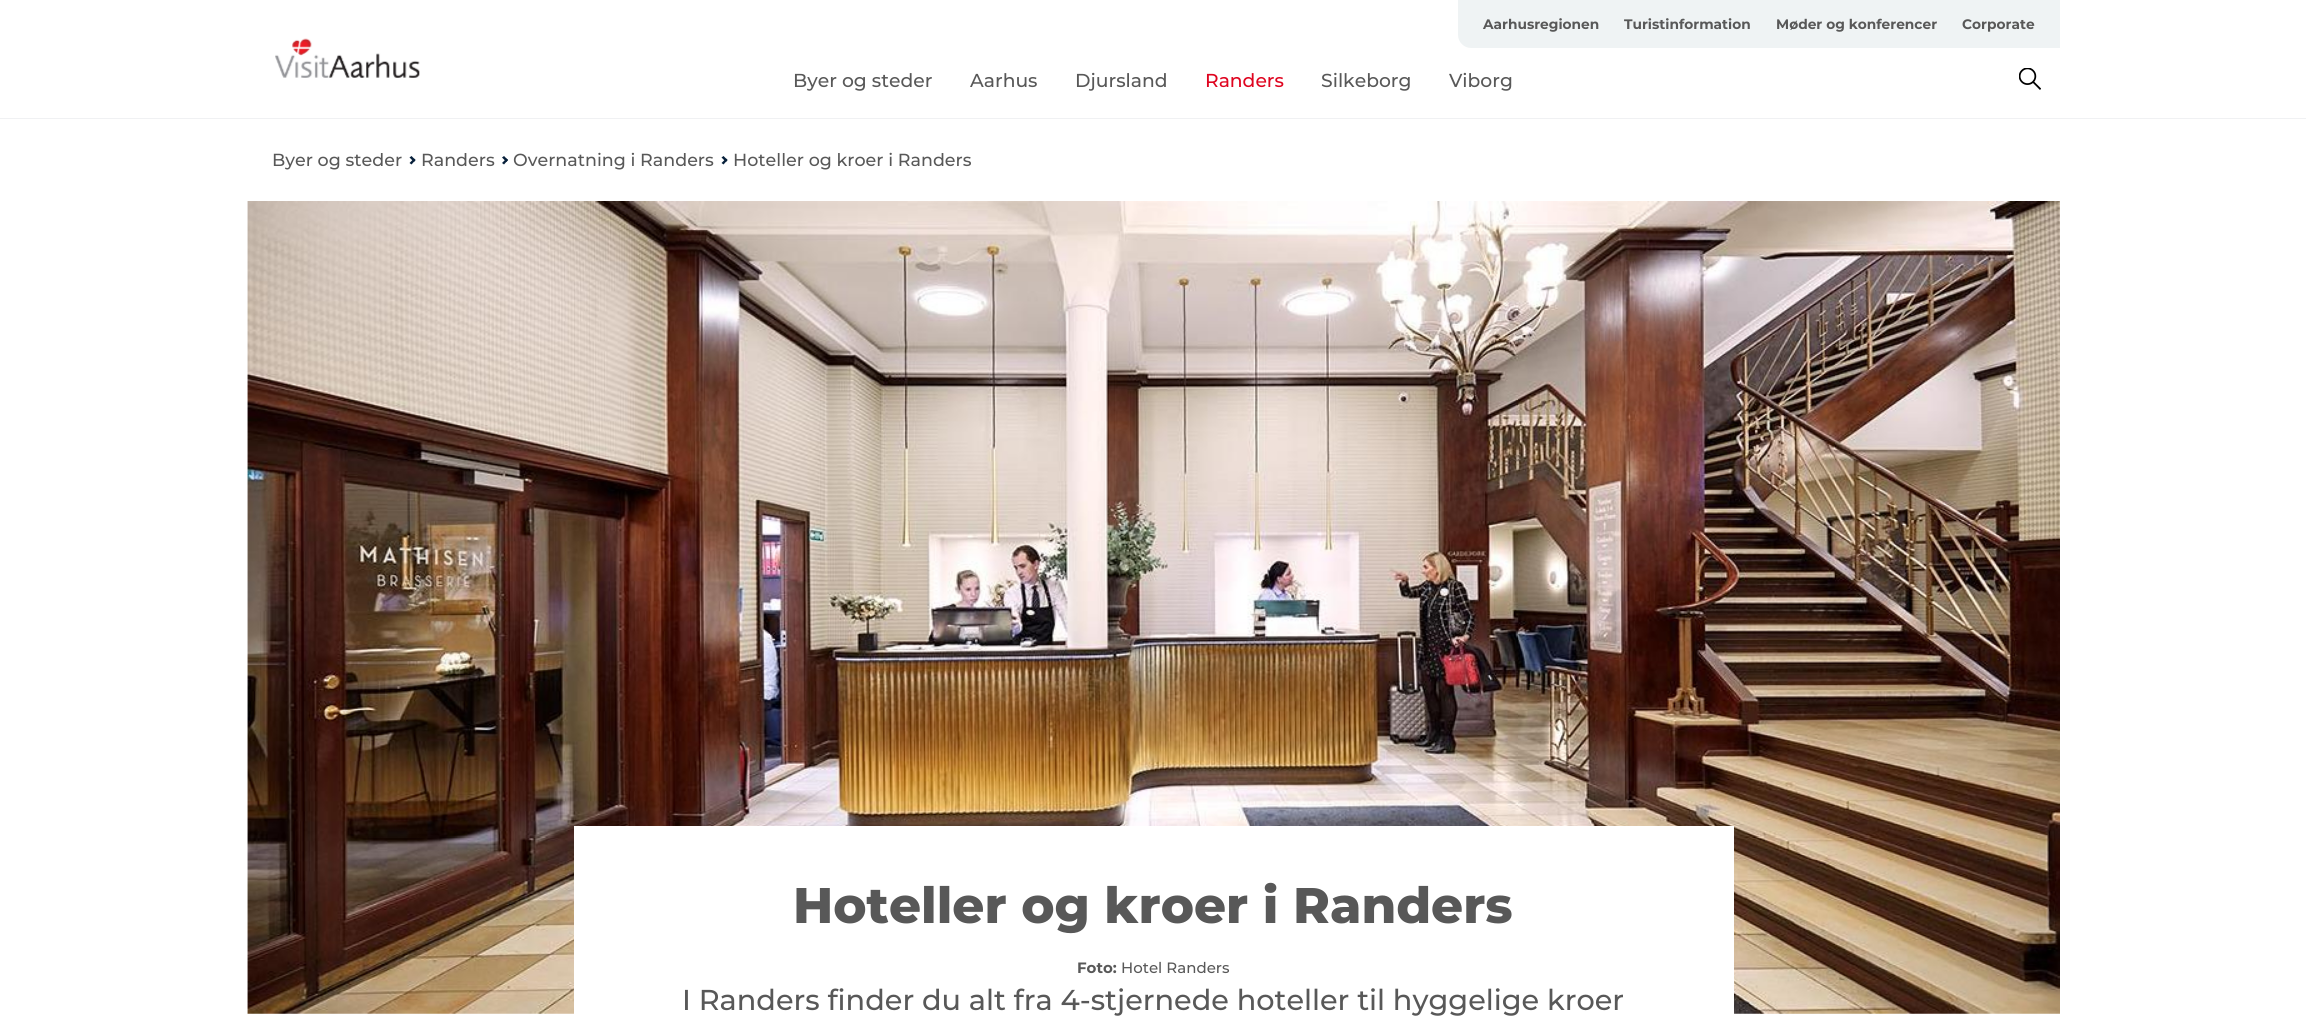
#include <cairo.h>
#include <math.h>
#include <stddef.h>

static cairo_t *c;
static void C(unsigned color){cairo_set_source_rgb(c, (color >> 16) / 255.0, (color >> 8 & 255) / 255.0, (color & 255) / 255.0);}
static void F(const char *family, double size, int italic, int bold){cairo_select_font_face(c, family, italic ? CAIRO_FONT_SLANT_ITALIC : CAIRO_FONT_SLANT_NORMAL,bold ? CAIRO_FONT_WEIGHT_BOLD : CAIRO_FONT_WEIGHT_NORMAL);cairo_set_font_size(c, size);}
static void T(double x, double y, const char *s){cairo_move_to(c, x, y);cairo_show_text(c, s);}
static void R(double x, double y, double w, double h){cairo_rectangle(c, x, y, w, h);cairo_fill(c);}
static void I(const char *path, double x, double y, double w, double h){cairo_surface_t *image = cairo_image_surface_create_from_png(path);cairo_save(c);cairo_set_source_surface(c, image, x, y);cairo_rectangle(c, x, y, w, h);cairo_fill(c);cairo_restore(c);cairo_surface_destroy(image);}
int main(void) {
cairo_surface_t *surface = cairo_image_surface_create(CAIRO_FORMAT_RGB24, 2306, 1033);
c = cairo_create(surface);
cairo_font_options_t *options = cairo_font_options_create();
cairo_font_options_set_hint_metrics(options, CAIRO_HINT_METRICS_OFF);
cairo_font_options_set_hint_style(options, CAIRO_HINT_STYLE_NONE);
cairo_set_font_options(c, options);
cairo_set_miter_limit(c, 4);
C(0xffffff);
cairo_paint(c);
C(0xf0f1f3);
R(0,118,2306,1);
I("1.png",275,38,145,40);
C(0xeff3f4);
cairo_new_path(c);
cairo_move_to(c,1458,0);
cairo_line_to(c,2060,0);
cairo_line_to(c,2060,48);
cairo_line_to(c,1471,48);
cairo_curve_to(c,1464,48,1458,42,1458,35);
cairo_close_path(c);
cairo_fill(c);
F("Montserrat",13.75,0,1);
C(0x585858);
T(1483,29,"Aarhusregionen");
T(1624,29,"Turistinformation");
T(1776,29,"Møder og konferencer");
T(1962,29,"Corporate");
F("Montserrat Medium",18.75,0,0);
T(793,87,"Byer og steder");
T(970,87,"Aarhus");
T(1075,87,"Djursland");
C(0xdf041f);
T(1205,87,"Randers");
C(0x585858);
T(1321,87,"Silkeborg");
T(1449,87,"Viborg");
I("2.png",2019,68,22,22);
F("Montserrat Medium",17.5,0,0);
T(272,166,"Byer og steder");
C(0x07203b);
cairo_new_path(c);
cairo_move_to(c,411.5,156);
cairo_line_to(c,415.5,160);
cairo_line_to(c,414,162);
cairo_line_to(c,409.5,157.5);
cairo_close_path(c);
cairo_fill(c);
cairo_new_path(c);
cairo_move_to(c,414,158.5);
cairo_line_to(c,415.5,160);
cairo_line_to(c,411.5,164.5);
cairo_line_to(c,409.5,163);
cairo_close_path(c);
cairo_fill(c);
C(0x585858);
T(421,166,"Randers");
C(0x07203b);
cairo_new_path(c);
cairo_move_to(c,504,156);
cairo_line_to(c,508,160);
cairo_line_to(c,506.5,162);
cairo_line_to(c,502,157.5);
cairo_close_path(c);
cairo_fill(c);
cairo_new_path(c);
cairo_move_to(c,506.5,158.5);
cairo_line_to(c,508,160);
cairo_line_to(c,504,164.5);
cairo_line_to(c,502,163);
cairo_close_path(c);
cairo_fill(c);
C(0x585858);
T(513,166,"Overnatning i Randers");
C(0x07203b);
cairo_new_path(c);
cairo_move_to(c,723.5,156);
cairo_line_to(c,727.5,160);
cairo_line_to(c,726,162);
cairo_line_to(c,721.5,157.5);
cairo_close_path(c);
cairo_fill(c);
cairo_new_path(c);
cairo_move_to(c,726,158.5);
cairo_line_to(c,727.5,160);
cairo_line_to(c,723.5,164.5);
cairo_line_to(c,721.5,163);
cairo_close_path(c);
cairo_fill(c);
C(0x585858);
T(733,166,"Hoteller og kroer i Randers");
I("3.png",247,201,1813,813);
C(0xffffff);
R(574,826,1160,188);
F("Montserrat ExtraBold",50,0,0);
C(0x585858);
T(793,923,"Hoteller og kroer i Randers");
F("Montserrat",15,0,1);
T(1077,973,"Foto:");
F("Montserrat Medium",15,0,0);
T(1121,973,"Hotel Randers");
F("Montserrat Medium",28.75,0,0);
T(682,1010,"I Randers finder du alt fra 4-stjernede hoteller til hyggelige kroer");
cairo_surface_write_to_png(surface, "o.png");
cairo_font_options_destroy(options);
cairo_destroy(c);
cairo_surface_destroy(surface);
return 0;
}
